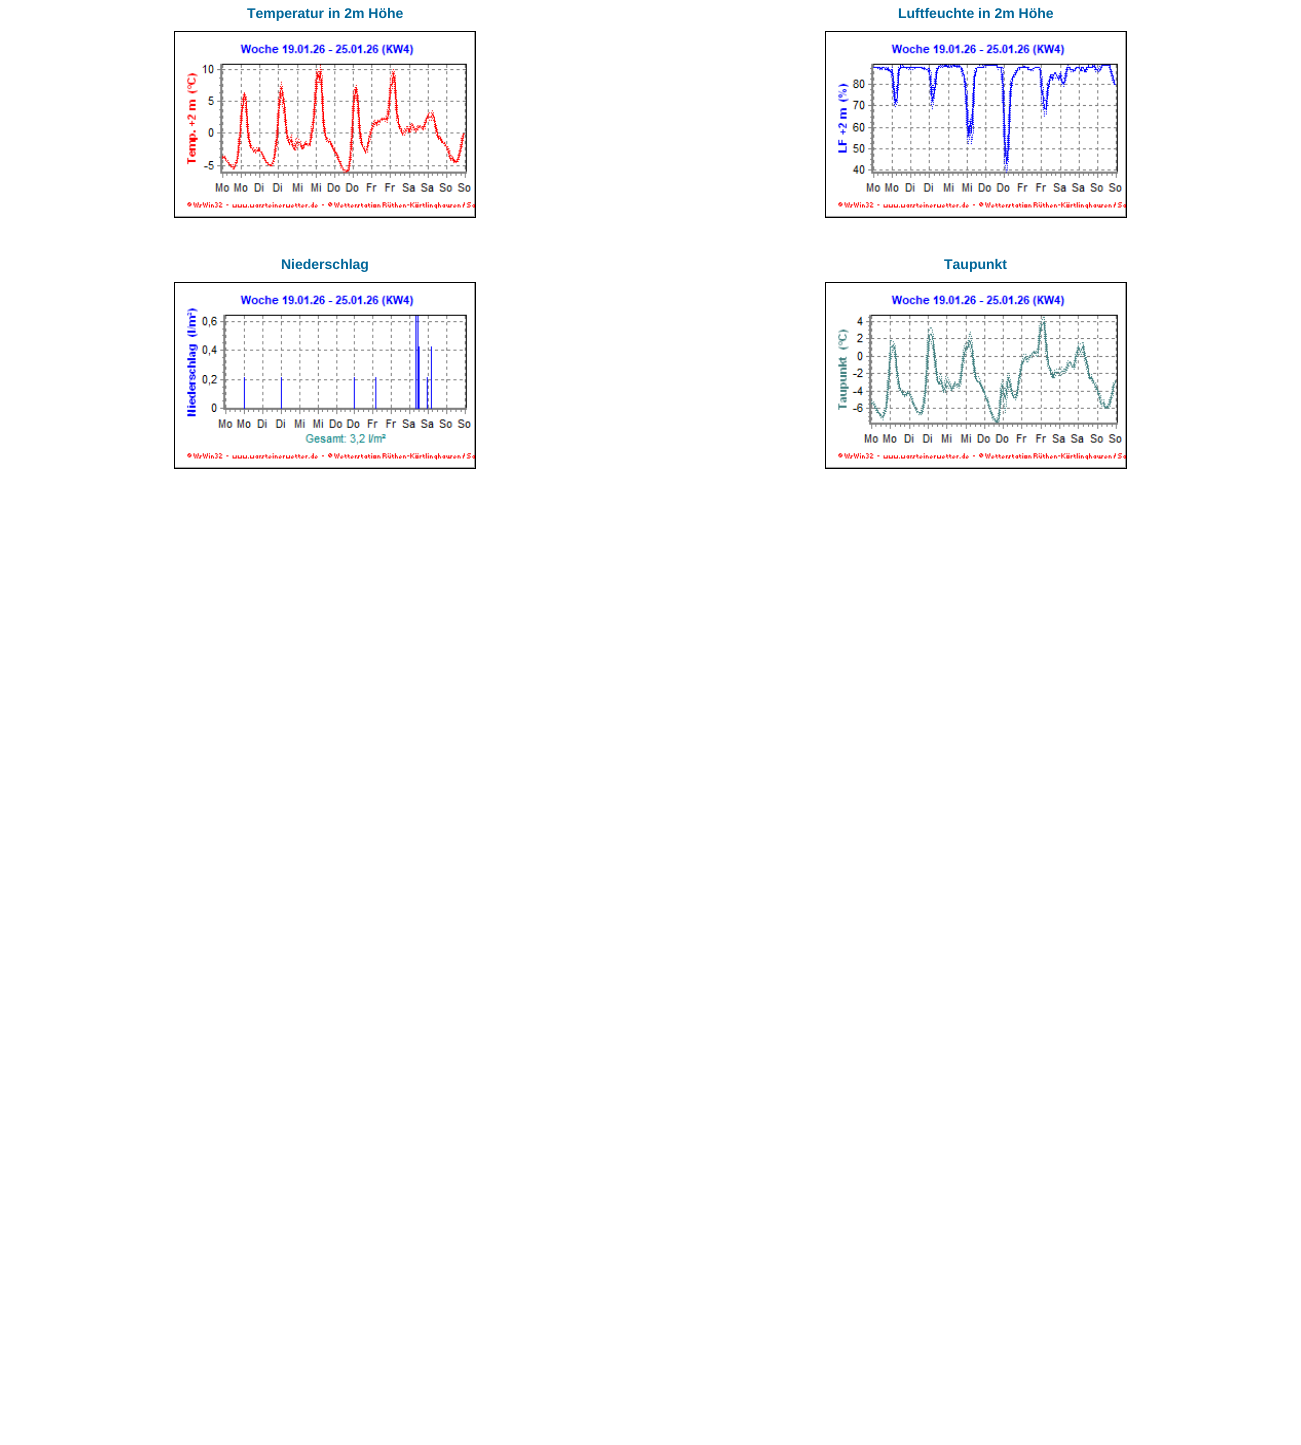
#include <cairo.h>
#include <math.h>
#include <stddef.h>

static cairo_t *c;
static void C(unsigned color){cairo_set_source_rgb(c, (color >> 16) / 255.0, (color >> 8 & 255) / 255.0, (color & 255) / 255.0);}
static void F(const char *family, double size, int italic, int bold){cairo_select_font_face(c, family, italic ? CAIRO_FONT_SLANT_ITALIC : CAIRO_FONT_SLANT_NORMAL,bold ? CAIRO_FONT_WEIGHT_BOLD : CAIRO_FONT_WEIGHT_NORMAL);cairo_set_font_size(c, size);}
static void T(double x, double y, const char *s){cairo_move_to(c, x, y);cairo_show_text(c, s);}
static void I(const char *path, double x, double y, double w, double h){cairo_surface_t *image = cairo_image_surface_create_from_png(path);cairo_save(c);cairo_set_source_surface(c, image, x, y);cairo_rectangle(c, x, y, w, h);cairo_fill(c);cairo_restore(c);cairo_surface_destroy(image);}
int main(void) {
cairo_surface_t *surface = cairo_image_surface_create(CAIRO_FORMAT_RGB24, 1301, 1445);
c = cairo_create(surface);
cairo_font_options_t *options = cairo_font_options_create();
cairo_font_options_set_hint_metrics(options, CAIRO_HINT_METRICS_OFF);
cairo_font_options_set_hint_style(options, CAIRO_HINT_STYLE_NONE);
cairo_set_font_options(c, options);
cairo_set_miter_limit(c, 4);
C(0xffffff);
cairo_paint(c);
F("Liberation Sans",14,0,1);
C(0x006699);
T(247,18,"Temperatur in 2m Höhe");
T(898,18,"Luftfeuchte in 2m Höhe");
cairo_rectangle(c,174.5,31.5,301,186);
C(0x000000);
cairo_set_line_width(c,1);
cairo_stroke(c);
I("1.png",175,32,300,185);
cairo_rectangle(c,825.5,31.5,301,186);
cairo_stroke(c);
I("2.png",826,32,300,185);
C(0x006699);
T(281,269,"Niederschlag");
T(944,269,"Taupunkt");
cairo_rectangle(c,174.5,282.5,301,186);
C(0x000000);
cairo_stroke(c);
I("3.png",175,283,300,185);
cairo_rectangle(c,825.5,282.5,301,186);
cairo_stroke(c);
I("4.png",826,283,300,185);
cairo_surface_write_to_png(surface, "o.png");
cairo_font_options_destroy(options);
cairo_destroy(c);
cairo_surface_destroy(surface);
return 0;
}
